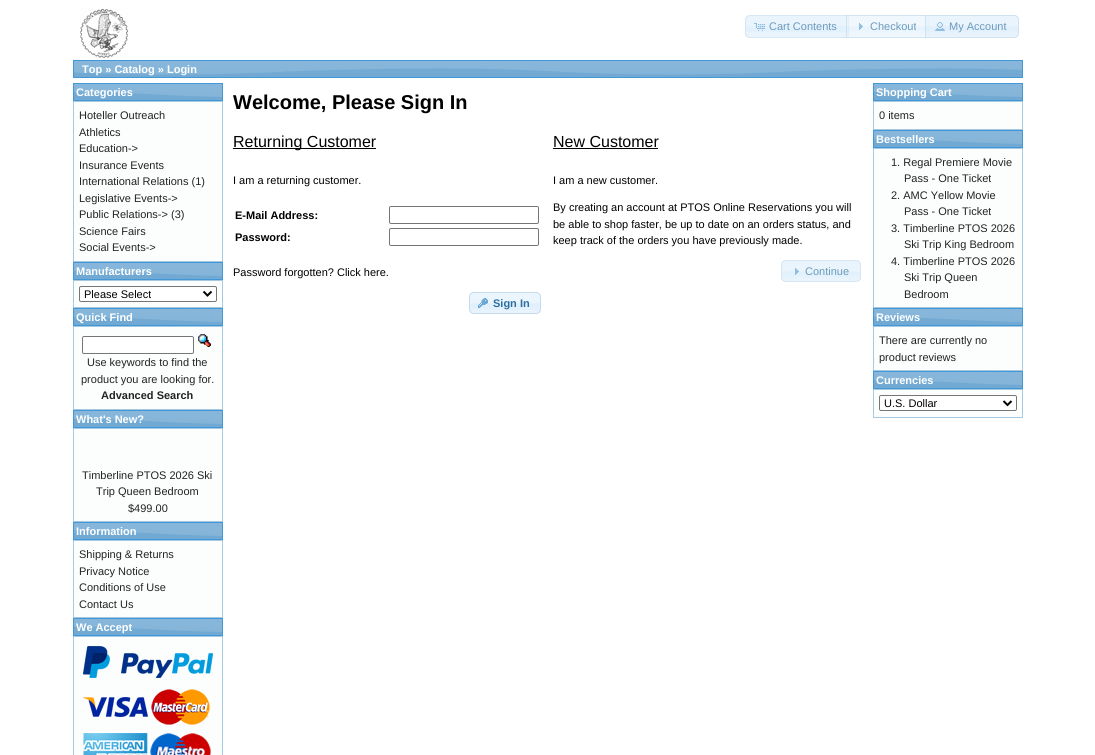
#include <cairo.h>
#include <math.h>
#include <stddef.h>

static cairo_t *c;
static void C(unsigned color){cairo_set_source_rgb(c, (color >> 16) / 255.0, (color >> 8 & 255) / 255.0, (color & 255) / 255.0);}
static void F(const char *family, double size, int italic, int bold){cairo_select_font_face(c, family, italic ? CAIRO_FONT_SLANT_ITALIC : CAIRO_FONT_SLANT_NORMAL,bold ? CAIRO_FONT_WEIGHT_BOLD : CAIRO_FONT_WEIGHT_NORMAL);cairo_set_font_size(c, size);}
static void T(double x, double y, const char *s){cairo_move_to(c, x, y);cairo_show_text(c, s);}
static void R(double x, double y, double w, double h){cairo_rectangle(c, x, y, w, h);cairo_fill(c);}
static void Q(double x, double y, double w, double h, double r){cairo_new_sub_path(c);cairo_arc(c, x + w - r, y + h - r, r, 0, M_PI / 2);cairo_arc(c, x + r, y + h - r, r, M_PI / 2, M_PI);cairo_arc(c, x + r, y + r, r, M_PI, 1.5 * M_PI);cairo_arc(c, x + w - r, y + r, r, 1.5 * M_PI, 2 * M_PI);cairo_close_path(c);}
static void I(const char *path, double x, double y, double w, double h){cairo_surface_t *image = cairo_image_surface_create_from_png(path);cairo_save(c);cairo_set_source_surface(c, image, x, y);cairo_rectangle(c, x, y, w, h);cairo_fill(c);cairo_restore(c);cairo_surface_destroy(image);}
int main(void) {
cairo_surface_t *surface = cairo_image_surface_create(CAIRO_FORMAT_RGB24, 1095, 755);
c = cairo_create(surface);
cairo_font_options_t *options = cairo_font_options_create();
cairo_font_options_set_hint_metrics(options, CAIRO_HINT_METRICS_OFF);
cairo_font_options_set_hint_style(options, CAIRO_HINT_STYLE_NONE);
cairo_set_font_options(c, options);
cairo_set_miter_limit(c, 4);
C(0xffffff);
cairo_paint(c);
I("1.png",80,8,49,50);
C(0xe9f4fd);
cairo_new_path(c);
cairo_move_to(c,750,15);
cairo_line_to(c,849,15);
cairo_line_to(c,849,38);
cairo_line_to(c,750,38);
cairo_curve_to(c,747,38,745,36,745,33);
cairo_line_to(c,745,20);
cairo_curve_to(c,745,17,747,15,750,15);
cairo_close_path(c);
cairo_fill(c);
C(0xe3f1fc);
R(745,26,104,6);
cairo_new_path(c);
cairo_move_to(c,750,15.5);
cairo_line_to(c,848.5,15.5);
cairo_line_to(c,848.5,37.5);
cairo_line_to(c,750,37.5);
cairo_curve_to(c,747.5,37.5,745.5,35.5,745.5,33);
cairo_line_to(c,745.5,20);
cairo_curve_to(c,745.5,17.5,747.5,15.5,750,15.5);
cairo_close_path(c);
C(0xd6e6f2);
cairo_set_line_width(c,1);
cairo_stroke(c);
I("2.png",754,23,11,8);
F("Liberation Sans",11,0,0);
C(0x6d9abb);
T(769,30,"Cart Contents");
I("3.png",846,15,83,23);
cairo_rectangle(c,846.5,15.5,82,22);
cairo_set_source_rgba(c,0.773,0.859,0.925,0.7);
cairo_stroke(c);
I("4.png",859,23,4,7);
C(0x6d9abb);
T(870,30,"Checkout");
cairo_set_source_rgba(c,0.875,0.937,0.988,0.7);
cairo_new_path(c);
cairo_move_to(c,925,15);
cairo_line_to(c,1014,15);
cairo_curve_to(c,1017,15,1019,17,1019,20);
cairo_line_to(c,1019,33);
cairo_curve_to(c,1019,36,1017,38,1014,38);
cairo_line_to(c,925,38);
cairo_close_path(c);
cairo_fill(c);
I("5.png",925,15,94,23);
cairo_new_path(c);
cairo_move_to(c,925.5,15.5);
cairo_line_to(c,1014,15.5);
cairo_curve_to(c,1016.5,15.5,1018.5,17.5,1018.5,20);
cairo_line_to(c,1018.5,33);
cairo_curve_to(c,1018.5,35.5,1016.5,37.5,1014,37.5);
cairo_line_to(c,925.5,37.5);
cairo_close_path(c);
cairo_set_source_rgba(c,0.773,0.859,0.925,0.7);
cairo_stroke(c);
I("6.png",935,22,10,9);
C(0x6d9abb);
T(949,30,"My Account");
I("7.png",74,61,948,16);
cairo_rectangle(c,73.5,60.5,949,17);
C(0x4297d7);
cairo_stroke(c);
F("Liberation Sans",11,0,1);
C(0xffffff);
T(82,73,"Top » Catalog » Login");
I("8.png",74,84,148,16);
cairo_rectangle(c,73.5,83.5,149,17);
C(0x4297d7);
cairo_stroke(c);
C(0xffffff);
T(76,96,"Categories");
C(0xfcfdfd);
cairo_rectangle(c,73.5,101.5,149,160);
cairo_fill_preserve(c);
C(0xa6c9e2);
cairo_stroke(c);
F("Liberation Sans",11,0,0);
C(0x222222);
T(79,119,"Hoteller Outreach");
T(79,136,"Athletics");
T(79,152,"Education->");
T(79,169,"Insurance Events");
T(79,185,"International Relations (1)");
T(79,202,"Legislative Events->");
T(79,218,"Public Relations-> (3)");
T(79,235,"Science Fairs");
T(79,251,"Social Events->");
I("8.png",74,263,148,16);
cairo_rectangle(c,73.5,262.5,149,17);
C(0x4297d7);
cairo_stroke(c);
F("Liberation Sans",11,0,1);
C(0xffffff);
T(76,275,"Manufacturers");
C(0xfcfdfd);
cairo_rectangle(c,73.5,280.5,149,27);
cairo_fill_preserve(c);
C(0xa6c9e2);
cairo_stroke(c);
C(0xffffff);
Q(79.5,286.5,137,15,1.5);
cairo_fill_preserve(c);
C(0x767676);
cairo_stroke(c);
cairo_new_path(c);
cairo_move_to(c,203.5,291.5);
cairo_line_to(c,207.5,295.5);
cairo_line_to(c,211.5,291.5);
C(0x000000);
cairo_set_line_width(c,2);
cairo_stroke(c);
F("Liberation Sans",11,0,0);
T(84,298,"Please Select");
I("8.png",74,309,148,16);
cairo_rectangle(c,73.5,308.5,149,17);
C(0x4297d7);
cairo_set_line_width(c,1);
cairo_stroke(c);
F("Liberation Sans",11,0,1);
C(0xffffff);
T(76,321,"Quick Find");
C(0xfcfdfd);
cairo_rectangle(c,73.5,326.5,149,83);
cairo_fill_preserve(c);
C(0xa6c9e2);
cairo_stroke(c);
C(0xffffff);
Q(82.5,336.5,111,17,1.5);
cairo_fill_preserve(c);
C(0x767676);
cairo_stroke(c);
I("9.png",198,334,13,13);
F("Liberation Sans",11,0,0);
C(0x222222);
T(87,366,"Use keywords to find the");
T(81,383,"product you are looking for.");
F("Liberation Sans",11,0,1);
T(101,399,"Advanced Search");
I("8.png",74,411,148,16);
cairo_rectangle(c,73.5,410.5,149,17);
C(0x4297d7);
cairo_stroke(c);
C(0xffffff);
T(76,423,"What's New?");
C(0xfcfdfd);
cairo_rectangle(c,73.5,428.5,149,93);
cairo_fill_preserve(c);
C(0xa6c9e2);
cairo_stroke(c);
F("Liberation Sans",11,0,0);
C(0x222222);
T(82,479,"Timberline PTOS 2026 Ski");
T(96,495,"Trip Queen Bedroom");
T(128,512,"$499.00");
I("8.png",74,523,148,16);
cairo_rectangle(c,73.5,522.5,149,17);
C(0x4297d7);
cairo_stroke(c);
F("Liberation Sans",11,0,1);
C(0xffffff);
T(76,535,"Information");
C(0xfcfdfd);
cairo_rectangle(c,73.5,540.5,149,77);
cairo_fill_preserve(c);
C(0xa6c9e2);
cairo_stroke(c);
F("Liberation Sans",11,0,0);
C(0x222222);
T(79,558,"Shipping & Returns");
T(79,575,"Privacy Notice");
T(79,591,"Conditions of Use");
T(79,608,"Contact Us");
I("8.png",74,619,148,16);
cairo_rectangle(c,73.5,618.5,149,17);
C(0x4297d7);
cairo_stroke(c);
F("Liberation Sans",11,0,1);
C(0xffffff);
T(76,631,"We Accept");
C(0xfcfdfd);
cairo_rectangle(c,73.5,636.5,149,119);
cairo_fill_preserve(c);
C(0xa6c9e2);
cairo_stroke(c);
I("10.png",83,646,130,32);
I("11.png",83,697,65,20);
I("12.png",151,689,59,36);
I("13.png",83,733,65,22);
I("14.png",150,733,61,22);
F("Liberation Sans",20,0,1);
C(0x000000);
T(233,109,"Welcome, Please Sign In");
R(233,148,143,1);
F("Liberation Sans",16,0,0);
T(233,147,"Returning Customer");
F("Liberation Sans",11,0,0);
T(233,184,"I am a returning customer.");
F("Liberation Sans",11,0,1);
T(235,219,"E-Mail Address:");
Q(389.5,206.5,149,17,1.5);
C(0x767676);
cairo_stroke(c);
C(0x000000);
T(235,241,"Password:");
Q(389.5,228.5,149,17,1.5);
C(0x767676);
cairo_stroke(c);
F("Liberation Sans",11,0,0);
C(0x000000);
T(233,276,"Password forgotten? Click here.");
I("15.png",469,292,72,22);
Q(469.5,292.5,71,21,4.5);
C(0xc5dbec);
cairo_stroke(c);
I("16.png",478,298,10,10);
F("Liberation Sans",11,0,1);
C(0x2e6e9e);
T(493,307,"Sign In");
F("Liberation Sans",16,0,0);
C(0x000000);
T(553,147,"New Customer");
R(553,148,105,1);
F("Liberation Sans",11,0,0);
T(553,184,"I am a new customer.");
T(553,211,"By creating an account at PTOS Online Reservations you will");
T(553,228,"be able to shop faster, be up to date on an orders status, and");
T(553,244,"keep track of the orders you have previously made.");
C(0xe9f4fd);
Q(781,260,80,22,5);
cairo_fill(c);
I("17.png",781,271,80,10);
Q(781.5,260.5,79,21,4.5);
C(0xd6e6f2);
cairo_stroke(c);
I("18.png",795,268,4,7);
C(0x6d9abb);
T(805,275,"Continue");
I("8.png",874,84,148,16);
cairo_rectangle(c,873.5,83.5,149,17);
C(0x4297d7);
cairo_stroke(c);
F("Liberation Sans",11,0,1);
C(0xffffff);
T(876,96,"Shopping Cart");
C(0xfcfdfd);
cairo_rectangle(c,873.5,101.5,149,28);
cairo_fill_preserve(c);
C(0xa6c9e2);
cairo_stroke(c);
F("Liberation Sans",11,0,0);
C(0x222222);
T(879,119,"0 items");
I("8.png",874,131,148,16);
cairo_rectangle(c,873.5,130.5,149,17);
C(0x4297d7);
cairo_stroke(c);
F("Liberation Sans",11,0,1);
C(0xffffff);
T(876,143,"Bestsellers");
C(0xfcfdfd);
cairo_rectangle(c,873.5,148.5,149,159);
cairo_fill_preserve(c);
C(0xa6c9e2);
cairo_stroke(c);
F("Liberation Sans",11,0,0);
C(0x222222);
T(891,166,"1. Regal Premiere Movie");
T(904,182,"Pass - One Ticket");
T(891,199,"2. AMC Yellow Movie");
T(904,215,"Pass - One Ticket");
T(891,232,"3. Timberline PTOS 2026");
T(904,248,"Ski Trip King Bedroom");
T(891,265,"4. Timberline PTOS 2026");
T(904,281,"Ski Trip Queen");
T(904,298,"Bedroom");
I("8.png",874,309,148,16);
cairo_rectangle(c,873.5,308.5,149,17);
C(0x4297d7);
cairo_stroke(c);
F("Liberation Sans",11,0,1);
C(0xffffff);
T(876,321,"Reviews");
C(0xfcfdfd);
cairo_rectangle(c,873.5,326.5,149,44);
cairo_fill_preserve(c);
C(0xa6c9e2);
cairo_stroke(c);
F("Liberation Sans",11,0,0);
C(0x222222);
T(879,344,"There are currently no");
T(879,361,"product reviews");
I("8.png",874,372,148,16);
cairo_rectangle(c,873.5,371.5,149,17);
C(0x4297d7);
cairo_stroke(c);
F("Liberation Sans",11,0,1);
C(0xffffff);
T(876,384,"Currencies");
C(0xfcfdfd);
cairo_rectangle(c,873.5,389.5,149,28);
cairo_fill_preserve(c);
C(0xa6c9e2);
cairo_stroke(c);
C(0xffffff);
Q(879.5,395.5,137,15,1.5);
cairo_fill_preserve(c);
C(0x767676);
cairo_stroke(c);
cairo_new_path(c);
cairo_move_to(c,1003.5,401);
cairo_line_to(c,1007.5,405);
cairo_line_to(c,1011.5,401);
C(0x000000);
cairo_set_line_width(c,2);
cairo_stroke(c);
F("Liberation Sans",11,0,0);
T(884,407,"U.S. Dollar");
cairo_surface_write_to_png(surface, "o.png");
cairo_font_options_destroy(options);
cairo_destroy(c);
cairo_surface_destroy(surface);
return 0;
}
